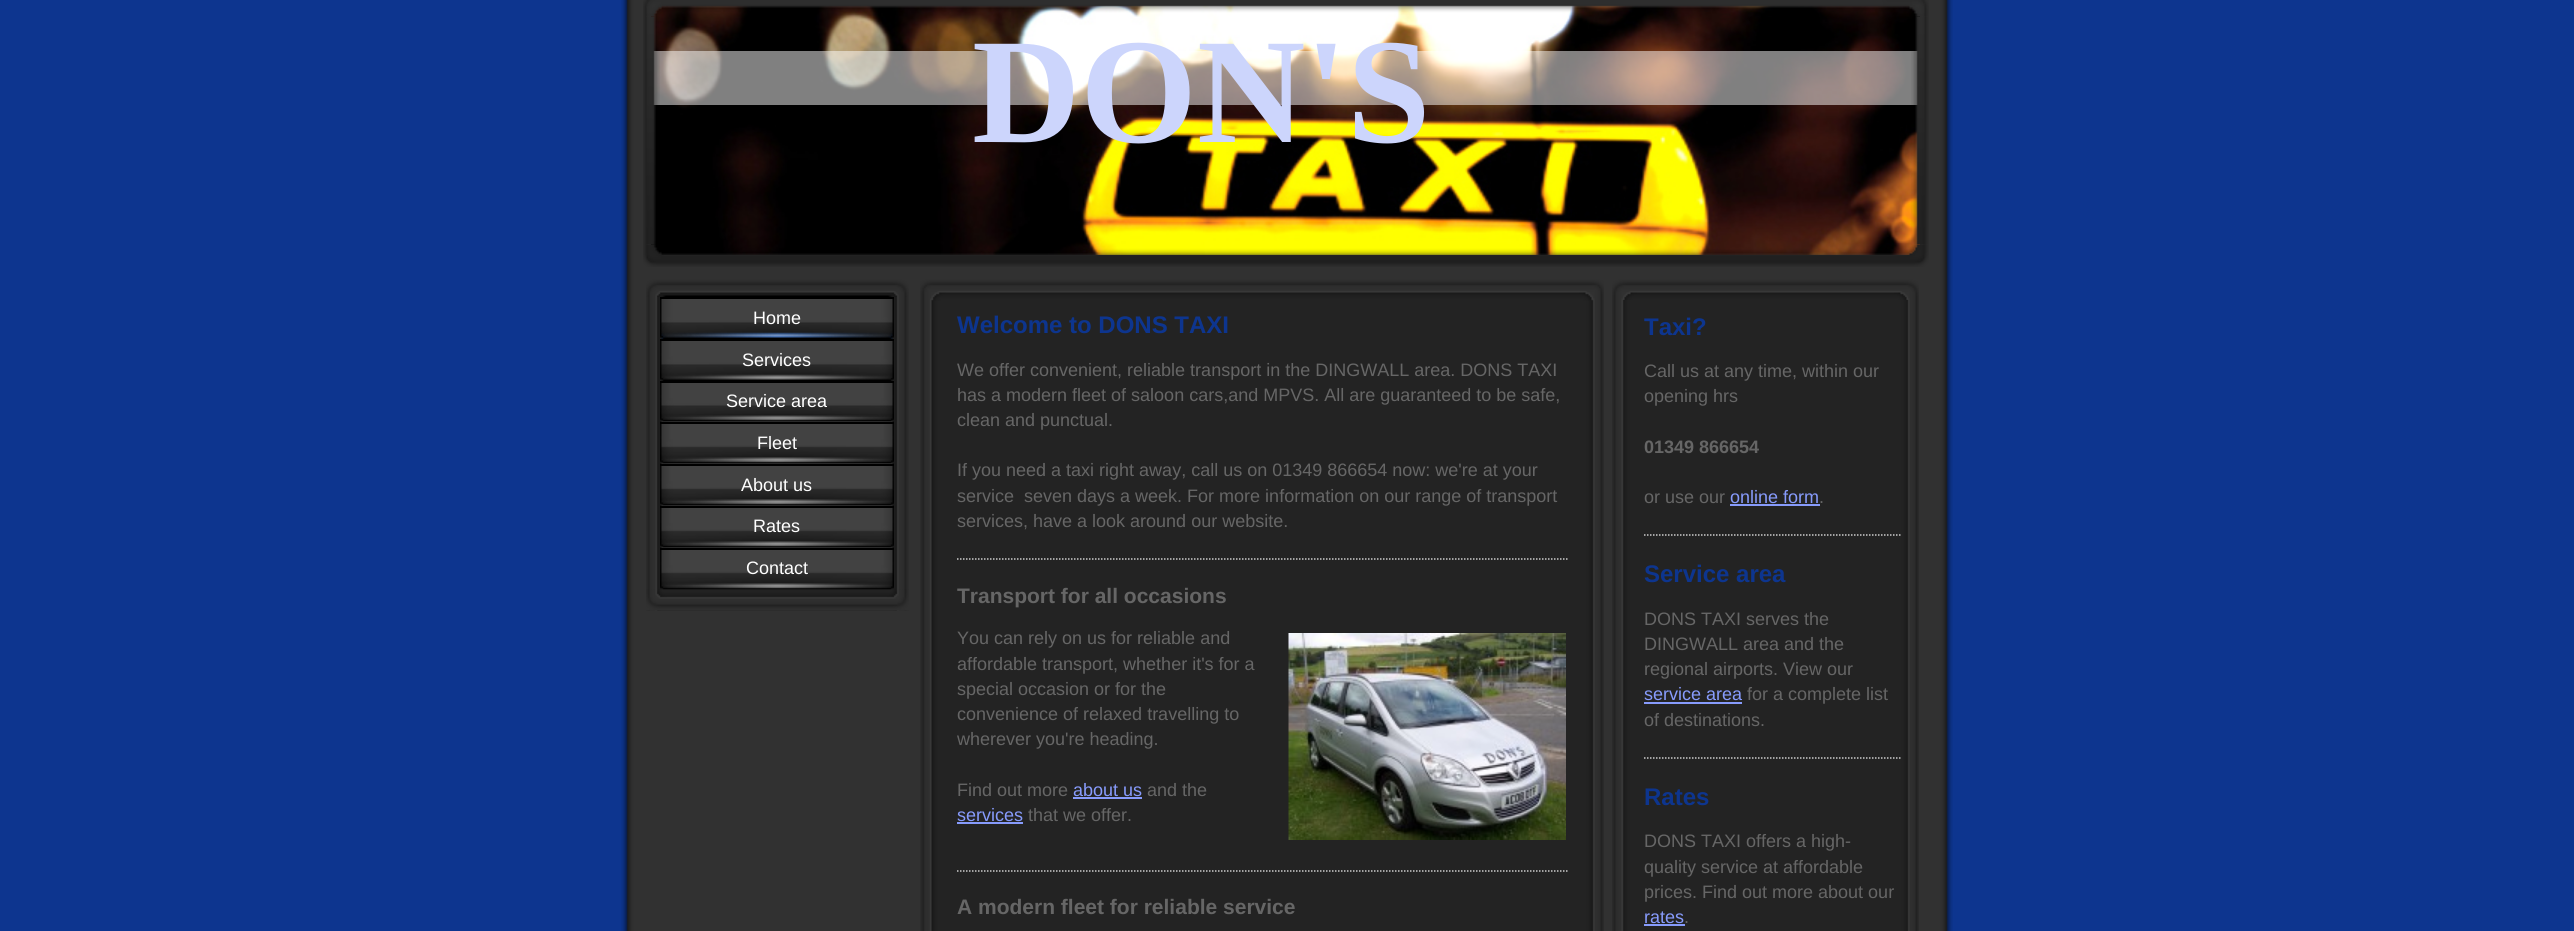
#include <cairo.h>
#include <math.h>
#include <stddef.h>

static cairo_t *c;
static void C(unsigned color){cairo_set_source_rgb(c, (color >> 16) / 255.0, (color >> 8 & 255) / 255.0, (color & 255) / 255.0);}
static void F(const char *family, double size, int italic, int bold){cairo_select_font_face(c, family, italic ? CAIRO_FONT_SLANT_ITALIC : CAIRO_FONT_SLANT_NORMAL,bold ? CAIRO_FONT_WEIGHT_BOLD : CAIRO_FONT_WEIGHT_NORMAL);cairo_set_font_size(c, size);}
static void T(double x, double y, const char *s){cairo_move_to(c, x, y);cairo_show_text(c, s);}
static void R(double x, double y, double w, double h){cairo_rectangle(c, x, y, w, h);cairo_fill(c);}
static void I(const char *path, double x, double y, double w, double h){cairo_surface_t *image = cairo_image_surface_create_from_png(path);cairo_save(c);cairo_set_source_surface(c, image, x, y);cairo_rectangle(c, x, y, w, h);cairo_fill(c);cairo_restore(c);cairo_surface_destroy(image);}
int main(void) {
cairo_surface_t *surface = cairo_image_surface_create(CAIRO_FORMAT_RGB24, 2574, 931);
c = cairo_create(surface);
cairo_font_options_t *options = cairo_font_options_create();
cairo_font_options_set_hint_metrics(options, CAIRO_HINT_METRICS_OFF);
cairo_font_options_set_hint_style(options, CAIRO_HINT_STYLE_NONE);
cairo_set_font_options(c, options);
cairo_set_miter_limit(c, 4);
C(0x0d358f);
cairo_paint(c);
I("1.png",621,0,1332,931);
I("4.png",651,5,1269,250);
cairo_set_source_rgba(c,1,1,1,0.5);
R(653,51,1265,54);
I("3.png",643,16,17,229);
I("6.png",643,244,1286,23);
I("5.png",1911,16,18,229);
I("2.png",643,0,1286,17);
F("Liberation Serif",150,0,1);
C(0xccd5fc);
T(972,142,"DON'S");
I("7.png",646,297,263,314);
I("8.png",646,279,263,18);
C(0x568fe6);
R(661,332,232,7);
I("9.png",660,299,234,40);
C(0x000000);
R(660,297,234,2);
F("Liberation Sans",18,0,0);
C(0xffffff);
T(753,324,"Home");
I("10.png",660,341,234,40);
C(0x000000);
R(660,339,234,2);
C(0xffffff);
T(742,366,"Services");
I("11.png",660,383,234,39);
C(0x000000);
R(660,381,234,2);
C(0xffffff);
T(726,407,"Service area");
I("12.png",660,421,234,43);
C(0x000000);
R(660,422,234,2);
C(0xffffff);
T(757,449,"Fleet");
I("12.png",660,463,234,43);
C(0x000000);
R(660,464,234,2);
C(0xffffff);
T(741,491,"About us");
I("12.png",660,505,234,43);
C(0x000000);
R(660,506,234,2);
C(0xffffff);
T(753,532,"Rates");
I("12.png",660,547,234,43);
C(0x000000);
R(660,548,234,2);
C(0xffffff);
T(746,574,"Contact");
I("13.png",646,589,263,22);
I("14.png",920,301,684,630);
I("15.png",920,279,684,22);
F("Liberation Sans",24,0,1);
C(0x0d358f);
T(957,333,"Welcome to DONS TAXI");
F("Liberation Sans",18,0,0);
C(0x666666);
T(957,376,"We offer convenient, reliable transport in the DINGWALL area. DONS TAXI");
T(957,401,"has a modern fleet of saloon cars,and MPVS. All are guaranteed to be safe,");
T(957,426,"clean and punctual.");
T(957,476,"If you need a taxi right away, call us on 01349 866654 now: we're at your");
T(957,502,"service  seven days a week. For more information on our range of transport");
T(957,527,"services, have a look around our website.");
cairo_new_path(c);
cairo_move_to(c,957,559);
cairo_line_to(c,1567.5,559);
C(0xcccccc);
cairo_set_line_width(c,1.5);
cairo_set_dash(c,(double[]){1.5,1.5},2,0);
cairo_stroke(c);
F("Liberation Sans",21,0,1);
C(0x666666);
T(957,603,"Transport for all occasions");
F("Liberation Sans",18,0,0);
T(957,644,"You can rely on us for reliable and");
T(957,670,"affordable transport, whether it's for a");
T(957,695,"special occasion or for the");
T(957,720,"convenience of relaxed travelling to");
T(957,745,"wherever you're heading.");
T(957,796,"Find out more");
C(0x879bfc);
T(1073,796,"about us");
R(1073,797,69,2);
C(0x666666);
T(1147,796,"and the");
C(0x879bfc);
T(957,821,"services");
R(957,822,66,2);
C(0x666666);
T(1028,821,"that we offer.");
I("16.png",1288,633,278,207);
cairo_new_path(c);
cairo_move_to(c,957,871);
cairo_line_to(c,1567.5,871);
C(0xcccccc);
cairo_stroke(c);
F("Liberation Sans",21,0,1);
C(0x666666);
T(957,914,"A modern fleet for reliable service");
I("17.png",1612,300,307,631);
I("18.png",1612,279,307,21);
F("Liberation Sans",24,0,1);
C(0x0d358f);
T(1644,335,"Taxi?");
F("Liberation Sans",18,0,0);
C(0x666666);
T(1644,377,"Call us at any time, within our");
T(1644,402,"opening hrs");
F("Liberation Sans",18,0,1);
T(1644,453,"01349 866654");
F("Liberation Sans",18,0,0);
T(1644,503,"or use our");
C(0x879bfc);
T(1730,503,"online form");
R(1730,504,90,2);
C(0x666666);
T(1819,503,".");
cairo_new_path(c);
cairo_move_to(c,1644,535);
cairo_line_to(c,1902,535);
C(0xcccccc);
cairo_stroke(c);
F("Liberation Sans",24,0,1);
C(0x0d358f);
T(1644,582,"Service area");
F("Liberation Sans",18,0,0);
C(0x666666);
T(1644,625,"DONS TAXI serves the");
T(1644,650,"DINGWALL area and the");
T(1644,675,"regional airports. View our");
C(0x879bfc);
T(1644,700,"service area");
R(1644,702,98,2);
C(0x666666);
T(1747,700,"for a complete list");
T(1644,726,"of destinations.");
cairo_new_path(c);
cairo_move_to(c,1644,758);
cairo_line_to(c,1902,758);
C(0xcccccc);
cairo_stroke(c);
F("Liberation Sans",24,0,1);
C(0x0d358f);
T(1644,805,"Rates");
F("Liberation Sans",18,0,0);
C(0x666666);
T(1644,847,"DONS TAXI offers a high-");
T(1644,873,"quality service at affordable");
T(1644,898,"prices. Find out more about our");
C(0x879bfc);
T(1644,923,"rates");
R(1644,924,41,2);
C(0x666666);
T(1684,923,".");
cairo_surface_write_to_png(surface, "o.png");
cairo_font_options_destroy(options);
cairo_destroy(c);
cairo_surface_destroy(surface);
return 0;
}
